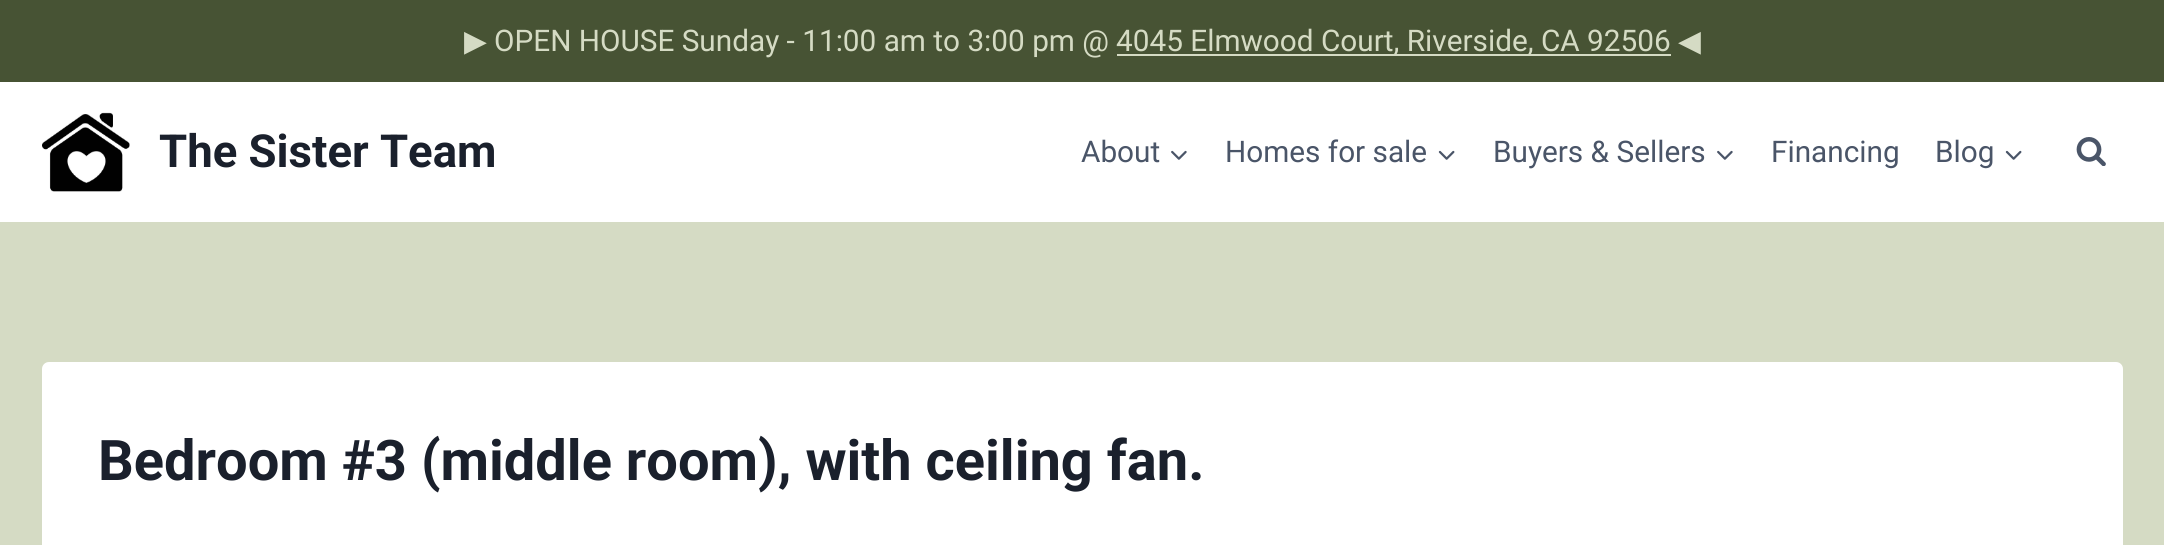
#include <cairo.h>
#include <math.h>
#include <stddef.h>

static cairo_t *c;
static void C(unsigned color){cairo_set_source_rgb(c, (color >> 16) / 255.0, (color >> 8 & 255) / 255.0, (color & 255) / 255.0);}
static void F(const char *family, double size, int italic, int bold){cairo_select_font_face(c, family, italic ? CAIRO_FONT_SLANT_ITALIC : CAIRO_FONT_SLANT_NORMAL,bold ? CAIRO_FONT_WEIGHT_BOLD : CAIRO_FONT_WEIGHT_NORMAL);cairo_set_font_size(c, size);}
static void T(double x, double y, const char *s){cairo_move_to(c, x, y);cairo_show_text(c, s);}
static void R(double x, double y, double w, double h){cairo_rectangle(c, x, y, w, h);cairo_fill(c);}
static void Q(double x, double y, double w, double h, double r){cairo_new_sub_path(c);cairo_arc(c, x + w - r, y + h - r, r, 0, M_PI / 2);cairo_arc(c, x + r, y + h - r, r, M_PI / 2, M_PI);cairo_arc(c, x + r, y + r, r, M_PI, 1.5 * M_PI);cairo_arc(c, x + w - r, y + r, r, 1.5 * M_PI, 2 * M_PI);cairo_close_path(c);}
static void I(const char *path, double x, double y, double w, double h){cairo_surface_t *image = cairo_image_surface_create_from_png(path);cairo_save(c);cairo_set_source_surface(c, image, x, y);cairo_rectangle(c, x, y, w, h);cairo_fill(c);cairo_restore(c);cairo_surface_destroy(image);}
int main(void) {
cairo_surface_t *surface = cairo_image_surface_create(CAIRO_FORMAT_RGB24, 2164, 545);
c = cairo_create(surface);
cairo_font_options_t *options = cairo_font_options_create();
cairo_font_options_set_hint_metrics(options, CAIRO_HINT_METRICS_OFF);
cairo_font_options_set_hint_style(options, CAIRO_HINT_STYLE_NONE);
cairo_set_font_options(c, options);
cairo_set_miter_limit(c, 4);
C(0xd5dbc4);
cairo_paint(c);
C(0xffffff);
R(0,82,2164,140);
C(0x475334);
R(0,0,2164,82);
F("DejaVu Sans",29.75,0,0);
C(0xd5dbc4);
T(464,51,"▶");
F("Roboto",29.75,0,0);
T(494,51,"OPEN HOUSE Sunday - 11:00 am to 3:00 pm @");
R(1117,54,554,2);
T(1116,51,"4045 Elmwood Court, Riverside, CA 92506");
F("DejaVu Sans",29.75,0,0);
T(1678,51,"◀");
I("1.png",42,112,88,80);
F("Roboto",45.5,0,1);
C(0x1a202c);
T(159,167,"The Sister Team");
F("Roboto",29.75,0,0);
C(0x4a5568);
T(1081,162,"About");
I("2.png",1171,150,16,10);
T(1225,162,"Homes for sale");
I("3.png",1438,150,17,10);
T(1493,162,"Buyers & Sellers");
I("2.png",1717,150,16,10);
T(1771,162,"Financing");
T(1935,162,"Blog");
I("3.png",2005,150,17,10);
I("4.png",2076,137,30,29);
C(0xffffff);
Q(42,362,2081,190,7);
cairo_fill(c);
F("Roboto",56,0,1);
C(0x1a202c);
T(98,480,"Bedroom #3 (middle room), with ceiling fan.");
cairo_surface_write_to_png(surface, "o.png");
cairo_font_options_destroy(options);
cairo_destroy(c);
cairo_surface_destroy(surface);
return 0;
}
